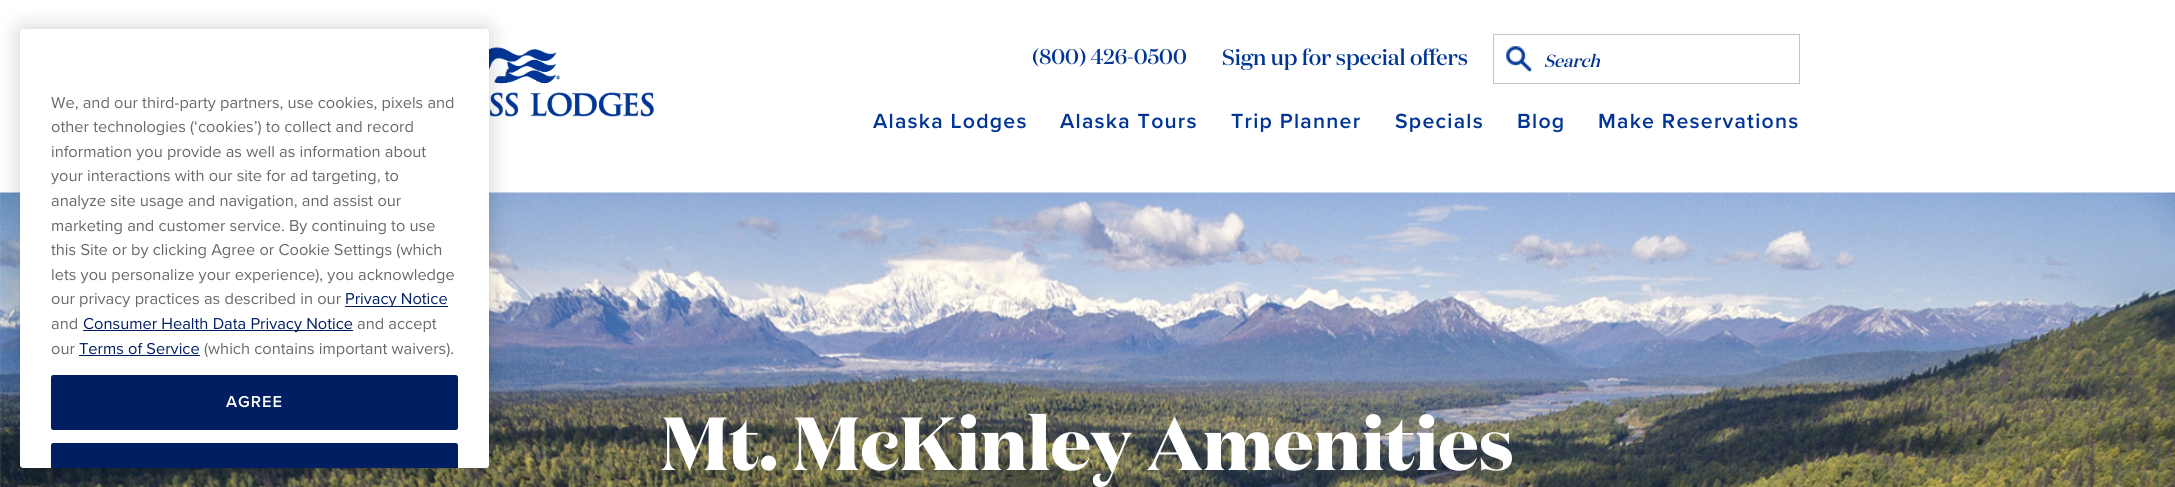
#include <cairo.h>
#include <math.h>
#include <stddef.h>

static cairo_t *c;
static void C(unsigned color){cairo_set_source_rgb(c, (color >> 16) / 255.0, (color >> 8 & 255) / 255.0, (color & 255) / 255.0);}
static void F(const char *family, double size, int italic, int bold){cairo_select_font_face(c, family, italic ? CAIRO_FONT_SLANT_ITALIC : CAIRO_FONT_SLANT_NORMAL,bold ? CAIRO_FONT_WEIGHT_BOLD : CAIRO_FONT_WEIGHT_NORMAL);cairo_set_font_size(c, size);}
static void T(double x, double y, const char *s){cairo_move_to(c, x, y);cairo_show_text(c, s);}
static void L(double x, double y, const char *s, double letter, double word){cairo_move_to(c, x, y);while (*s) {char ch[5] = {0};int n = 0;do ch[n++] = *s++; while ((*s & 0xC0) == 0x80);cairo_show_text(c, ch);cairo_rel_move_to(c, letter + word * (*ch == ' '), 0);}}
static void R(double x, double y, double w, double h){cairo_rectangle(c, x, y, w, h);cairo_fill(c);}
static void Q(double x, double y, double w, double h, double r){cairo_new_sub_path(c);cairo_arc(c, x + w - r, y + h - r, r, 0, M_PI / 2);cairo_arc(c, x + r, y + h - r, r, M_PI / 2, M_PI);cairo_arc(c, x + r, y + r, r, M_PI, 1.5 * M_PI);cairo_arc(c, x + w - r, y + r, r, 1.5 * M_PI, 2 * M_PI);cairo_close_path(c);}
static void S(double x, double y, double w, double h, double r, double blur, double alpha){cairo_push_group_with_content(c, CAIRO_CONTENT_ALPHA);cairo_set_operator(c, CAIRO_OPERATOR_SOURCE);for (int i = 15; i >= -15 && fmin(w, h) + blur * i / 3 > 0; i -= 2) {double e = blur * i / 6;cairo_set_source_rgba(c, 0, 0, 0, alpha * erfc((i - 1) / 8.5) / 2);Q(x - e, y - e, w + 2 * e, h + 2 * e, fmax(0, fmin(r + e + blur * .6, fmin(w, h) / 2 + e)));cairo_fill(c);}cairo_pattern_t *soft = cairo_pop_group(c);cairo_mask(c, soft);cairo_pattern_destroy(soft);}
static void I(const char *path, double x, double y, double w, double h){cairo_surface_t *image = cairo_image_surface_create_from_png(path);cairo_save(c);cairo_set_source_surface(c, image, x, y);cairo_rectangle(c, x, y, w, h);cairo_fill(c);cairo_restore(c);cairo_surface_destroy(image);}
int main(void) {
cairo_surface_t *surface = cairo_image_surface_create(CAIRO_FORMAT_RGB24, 2175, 487);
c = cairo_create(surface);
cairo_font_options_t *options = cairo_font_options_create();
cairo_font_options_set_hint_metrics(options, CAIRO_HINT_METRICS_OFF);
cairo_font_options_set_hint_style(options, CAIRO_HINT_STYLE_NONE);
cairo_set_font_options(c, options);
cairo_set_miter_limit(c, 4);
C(0xffffff);
cairo_paint(c);
I("1.png",489,47,165,70);
I("3.png",0,192,2175,295);
C(0x000000);
S(20,29,469,439,3,11,.2);
C(0xffffff);
Q(20,29,469,439,3);
cairo_fill(c);
F("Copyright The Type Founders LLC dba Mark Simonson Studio",16.4,0,0);
C(0x696969);
T(51,108,"We, and our third-party partners, use cookies, pixels and");
T(51,132,"other technologies (‘cookies’) to collect and record");
T(51,157,"information you provide as well as information about");
T(51,181,"your interactions with our site for ad targeting, to");
T(51,206,"analyze site usage and navigation, and assist our");
T(51,231,"marketing and customer service. By continuing to use");
T(51,255,"this Site or by clicking Agree or Cookie Settings (which");
T(51,280,"lets you personalize your experience), you acknowledge");
T(51,304,"our privacy practices as described in our");
C(0x001e61);
R(345,306,103,1);
T(345,304,"Privacy Notice");
C(0x696969);
T(51,329,"and");
C(0x001e61);
R(83,330,270,1);
T(83,329,"Consumer Health Data Privacy Notice");
C(0x696969);
T(357,329,"and accept");
T(51,354,"our");
C(0x001e61);
T(79,354,"Terms of Service");
R(79,355,121,1);
C(0x696969);
T(204,354,"(which contains important waivers).");
C(0x001e61);
Q(51.5,375.5,406,54,2);
cairo_fill_preserve(c);
cairo_set_line_width(c,1);
cairo_stroke(c);
F("Copyright The Type Founders LLC dba Mark Simonson Studio SemiBold",16.4,0,0);
C(0xffffff);
L(226,407,"AGREE",1,0);
C(0x001e61);
cairo_new_path(c);
cairo_move_to(c,53.5,443);
cairo_line_to(c,455.5,443);
cairo_curve_to(c,457,443,458,444,458,445.5);
cairo_line_to(c,458,468);
cairo_line_to(c,51,468);
cairo_line_to(c,51,445.5);
cairo_curve_to(c,51,444,52,443,53.5,443);
cairo_close_path(c);
cairo_fill(c);
F("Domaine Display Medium",21.25,0,0);
C(0x003595);
T(1032,64,"(800) 426-0500");
F("Domaine Display Medium",22,0,0);
T(1222,65,"Sign up for special offers");
cairo_rectangle(c,1493.5,34.5,306,49);
C(0xc4c4c4);
cairo_stroke(c);
I("2.png",1506,46,26,26);
F("Domaine Display Medium",17.5,1,0);
C(0x003595);
T(1544,67,"Search");
F("Copyright The Type Founders LLC dba Mark Simonson Studio SemiBold",21.25,0,0);
L(873,128,"Alaska Lodges",1.25,0);
L(1060,128,"Alaska Tours",1.25,0);
L(1231,128,"Trip Planner",1.25,0);
L(1395,128,"Specials",1.25,0);
L(1517,128,"Blog",1.25,0);
L(1598,128,"Make Reservations",1.25,0);
F("Domaine Display",75,0,1);
C(0xffffff);
T(661,470,"Mt. McKinley Amenities");
cairo_surface_write_to_png(surface, "o.png");
cairo_font_options_destroy(options);
cairo_destroy(c);
cairo_surface_destroy(surface);
return 0;
}
